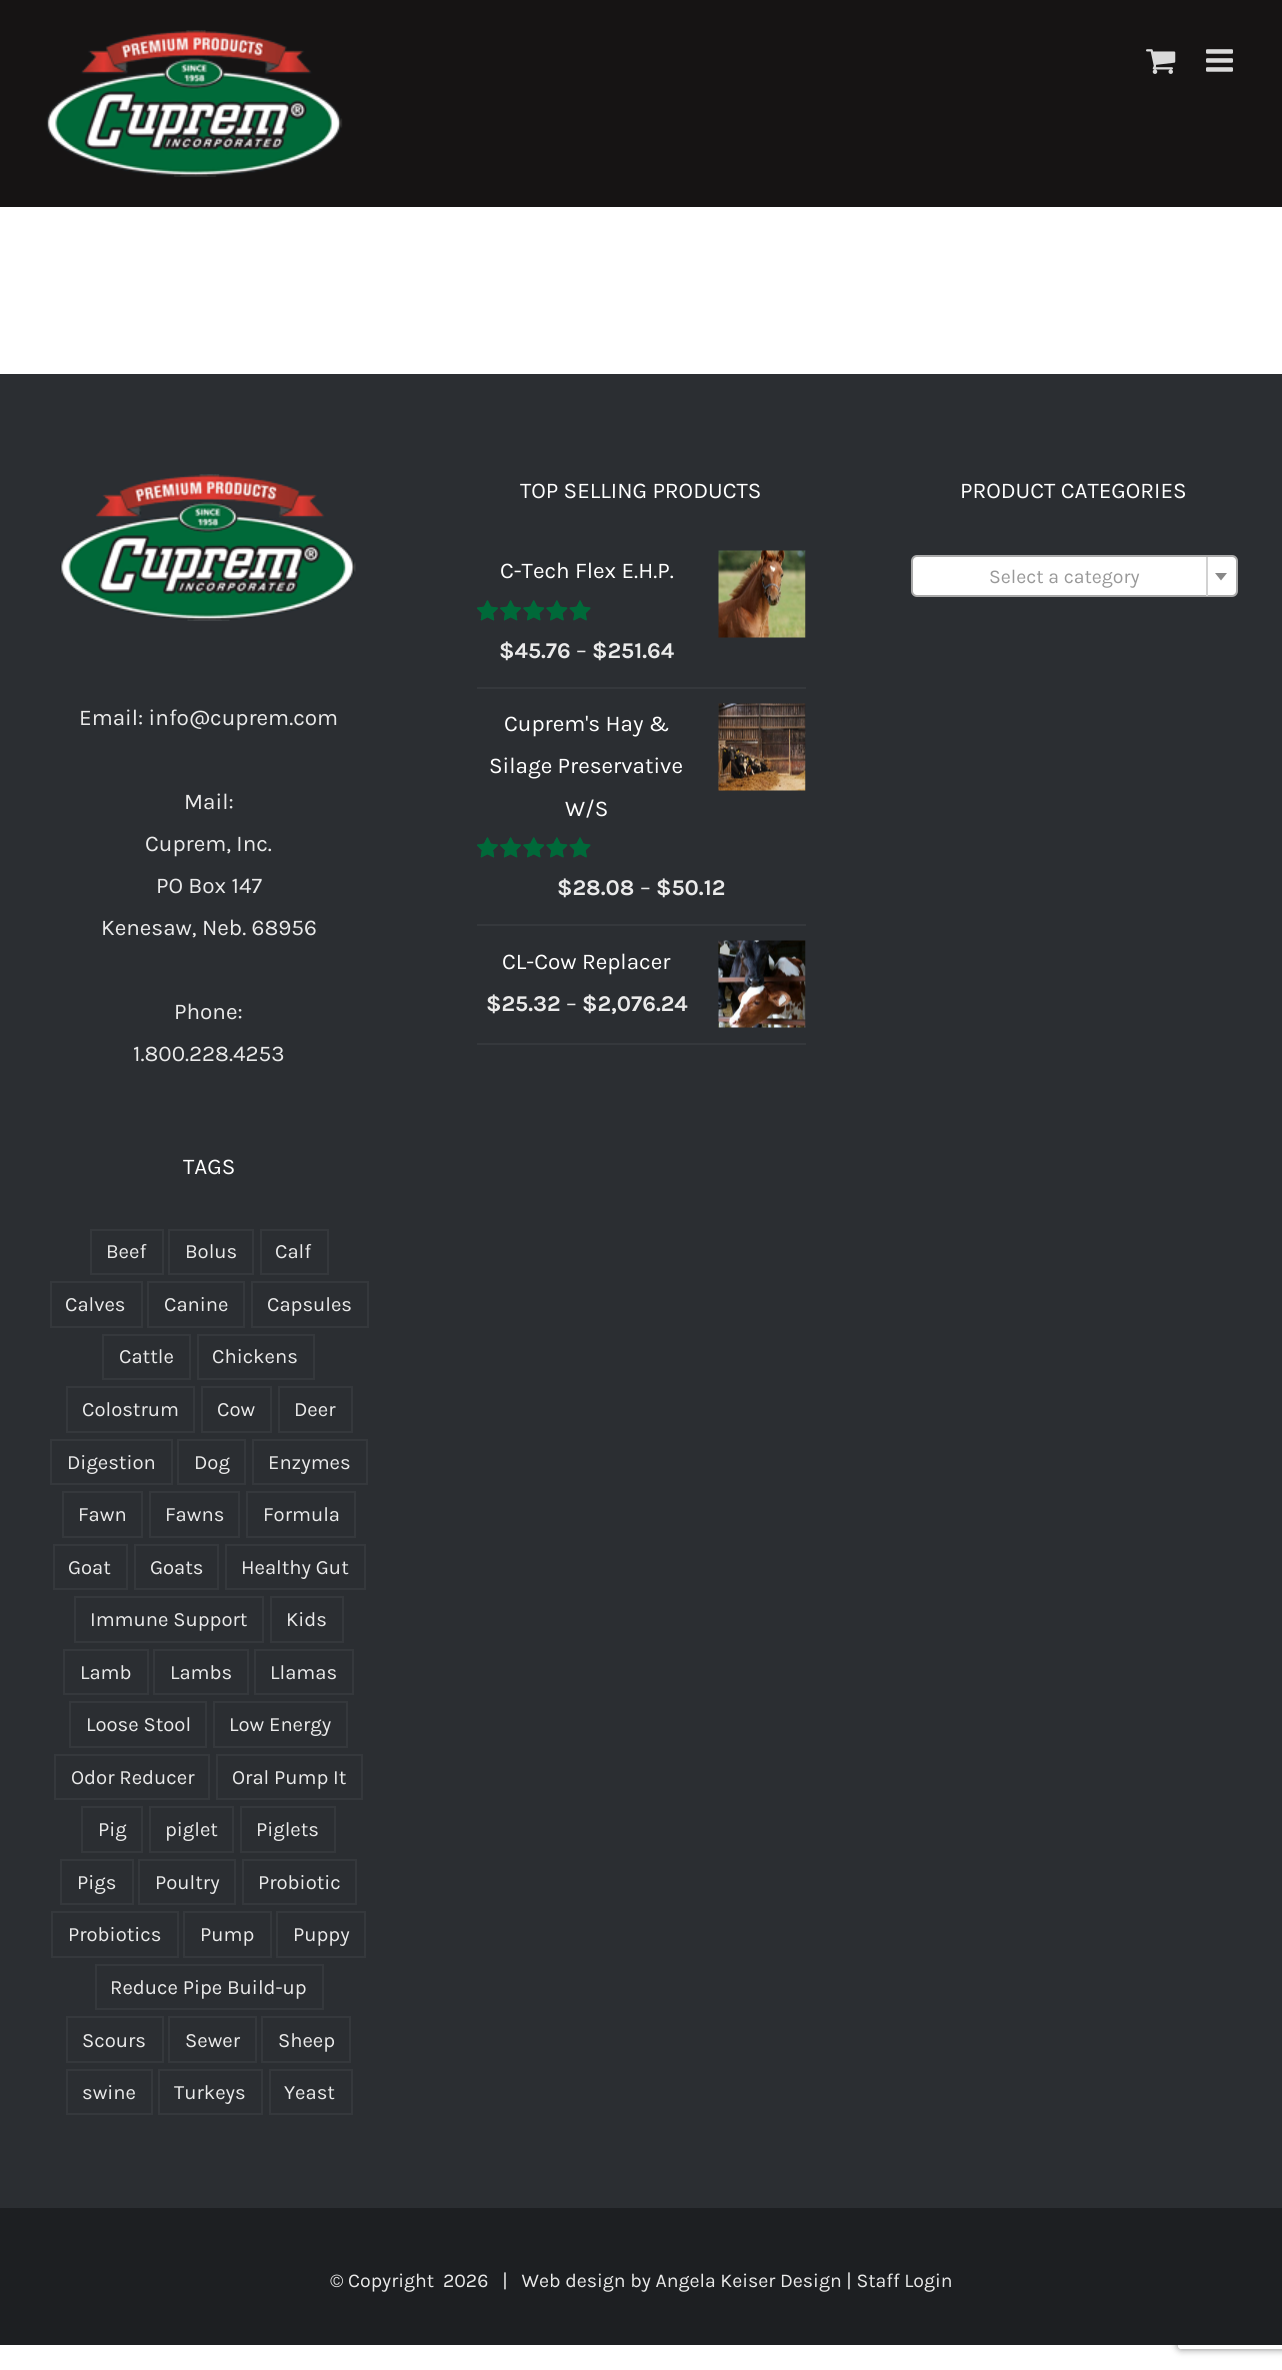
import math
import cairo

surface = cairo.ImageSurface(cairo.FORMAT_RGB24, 1282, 2370)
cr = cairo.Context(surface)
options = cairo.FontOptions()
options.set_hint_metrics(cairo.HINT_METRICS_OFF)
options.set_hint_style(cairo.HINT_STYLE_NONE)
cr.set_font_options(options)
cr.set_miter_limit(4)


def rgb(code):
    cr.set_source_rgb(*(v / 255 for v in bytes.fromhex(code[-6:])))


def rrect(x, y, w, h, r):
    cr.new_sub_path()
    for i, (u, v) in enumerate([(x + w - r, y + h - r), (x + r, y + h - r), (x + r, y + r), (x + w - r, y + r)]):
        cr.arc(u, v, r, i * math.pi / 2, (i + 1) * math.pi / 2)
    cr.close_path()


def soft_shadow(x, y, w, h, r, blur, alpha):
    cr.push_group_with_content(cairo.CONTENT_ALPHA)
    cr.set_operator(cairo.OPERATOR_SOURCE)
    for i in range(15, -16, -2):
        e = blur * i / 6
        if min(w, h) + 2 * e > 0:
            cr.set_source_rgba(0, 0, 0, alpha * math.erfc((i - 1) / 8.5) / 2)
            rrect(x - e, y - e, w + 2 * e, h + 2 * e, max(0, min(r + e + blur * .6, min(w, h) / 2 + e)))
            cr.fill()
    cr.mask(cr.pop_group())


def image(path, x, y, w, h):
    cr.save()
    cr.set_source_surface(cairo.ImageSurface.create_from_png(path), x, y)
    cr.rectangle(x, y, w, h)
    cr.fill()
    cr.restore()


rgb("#ffffff")
cr.paint()
rgb("#161414")
cr.rectangle(0, 0, 1282, 207)
cr.fill()
image("img/1.png", 46, 30, 297, 147)
image("img/2.png", 1146, 49, 30, 25)
image("img/3.png", 1206, 49, 27, 23)
rgb("#2b2e32")
cr.rectangle(0, 374, 1282, 1834)
cr.fill()
rgb("#35383c")
cr.rectangle(477, 687, 329, 2)
cr.fill()
image("img/4.png", 718, 550, 88, 88)
image("img/5.png", 477, 600, 114, 21)
image("img/6.png", 477, 600, 114, 21)
cr.rectangle(477, 924, 329, 2)
cr.fill()
image("img/7.png", 718, 703, 88, 88)
image("img/5.png", 477, 837, 114, 21)
image("img/6.png", 477, 837, 114, 21)
cr.rectangle(477, 1043, 329, 2)
cr.fill()
image("img/8.png", 718, 940, 88, 88)
rgb("#ffffff")
rrect(912, 556, 325, 40, 5)
cr.fill_preserve()
rgb("#aaaaaa")
cr.stroke()
rgb("#d2d2d2")
cr.rectangle(1206, 557, 2, 39)
cr.fill()
rgb("#888888")
cr.new_path()
cr.move_to(1215, 573)
cr.line_to(1227, 573)
cr.line_to(1221, 580.5)
cr.close_path()
cr.fill()
image("img/9.png", 60, 474, 296, 147)
cr.rectangle(91, 1230, 72, 44)
rgb("#35383c")
cr.stroke()
cr.rectangle(169, 1230, 84, 44)
cr.stroke()
cr.rectangle(261, 1230, 67, 44)
cr.stroke()
cr.rectangle(51, 1282, 91, 45)
cr.stroke()
cr.rectangle(148, 1282, 96, 45)
cr.stroke()
cr.rectangle(252, 1282, 116, 45)
cr.stroke()
cr.rectangle(103, 1335, 87, 44)
cr.stroke()
cr.rectangle(198, 1335, 116, 44)
cr.stroke()
cr.rectangle(67, 1387, 127, 45)
cr.stroke()
cr.rectangle(202, 1387, 69, 45)
cr.stroke()
cr.rectangle(279, 1387, 73, 45)
cr.stroke()
cr.rectangle(51, 1440, 121, 44)
cr.stroke()
cr.rectangle(178, 1440, 67, 44)
cr.stroke()
cr.rectangle(253, 1440, 114, 44)
cr.stroke()
cr.rectangle(63, 1492, 79, 45)
cr.stroke()
cr.rectangle(150, 1492, 89, 45)
cr.stroke()
cr.rectangle(247, 1492, 108, 45)
cr.stroke()
cr.rectangle(54, 1545, 73, 44)
cr.stroke()
cr.rectangle(135, 1545, 83, 44)
cr.stroke()
cr.rectangle(226, 1545, 139, 44)
cr.stroke()
cr.rectangle(75, 1597, 188, 45)
cr.stroke()
cr.rectangle(271, 1597, 72, 45)
cr.stroke()
cr.rectangle(64, 1650, 84, 44)
cr.stroke()
cr.rectangle(154, 1650, 94, 44)
cr.stroke()
cr.rectangle(255, 1650, 98, 44)
cr.stroke()
cr.rectangle(70, 1702, 136, 45)
cr.stroke()
cr.rectangle(214, 1702, 133, 45)
cr.stroke()
cr.rectangle(55, 1755, 154, 44)
cr.stroke()
cr.rectangle(217, 1755, 145, 44)
cr.stroke()
cr.rectangle(82, 1807, 60, 45)
cr.stroke()
cr.rectangle(150, 1807, 83, 45)
cr.stroke()
cr.rectangle(241, 1807, 94, 45)
cr.stroke()
cr.rectangle(61, 1860, 72, 44)
cr.stroke()
cr.rectangle(139, 1860, 96, 44)
cr.stroke()
cr.rectangle(243, 1860, 113, 44)
cr.stroke()
cr.rectangle(52, 1912, 126, 45)
cr.stroke()
cr.rectangle(184, 1912, 87, 45)
cr.stroke()
cr.rectangle(277, 1912, 88, 45)
cr.stroke()
cr.rectangle(96, 1965, 227, 44)
cr.stroke()
cr.rectangle(67, 2017, 96, 45)
cr.stroke()
cr.rectangle(169, 2017, 87, 45)
cr.stroke()
cr.rectangle(262, 2017, 88, 45)
cr.stroke()
cr.rectangle(67, 2070, 85, 44)
cr.stroke()
cr.rectangle(159, 2070, 103, 44)
cr.stroke()
cr.rectangle(270, 2070, 82, 44)
cr.stroke()
cr.save()
cr.set_fill_rule(cairo.FILL_RULE_EVEN_ODD)
cr.new_path()
cr.move_to(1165, 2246)
cr.line_to(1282, 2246)
cr.line_to(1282, 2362)
cr.line_to(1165, 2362)
cr.close_path()
cr.move_to(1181, 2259)
cr.line_to(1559, 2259)
cr.curve_to(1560.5, 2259, 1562, 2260.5, 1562, 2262)
cr.line_to(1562, 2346)
cr.curve_to(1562, 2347.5, 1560.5, 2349, 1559, 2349)
cr.line_to(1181, 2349)
cr.curve_to(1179.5, 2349, 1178, 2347.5, 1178, 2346)
cr.line_to(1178, 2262)
cr.curve_to(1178, 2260.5, 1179.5, 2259, 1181, 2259)
cr.close_path()
cr.clip()
rgb("#808080")
soft_shadow(1178, 2259, 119, 90, 3, 4, 1)
cr.restore()
rgb("#1d1f22")
cr.rectangle(0, 2208, 1282, 137)
cr.fill()
cr.select_font_face("Karla")
cr.set_font_size(22.5)
rgb("#ffffff")
cr.move_to(520, 498)
cr.show_text("TOP SELLING PRODUCTS")
cr.move_to(500, 578)
cr.show_text("C-Tech Flex E.H.P.")
cr.select_font_face("Karla", cairo.FONT_SLANT_NORMAL, cairo.FONT_WEIGHT_BOLD)
rgb("#eaeaea")
cr.move_to(499, 658)
cr.show_text("$45.76")
cr.select_font_face("Karla")
cr.move_to(576, 658)
cr.show_text("–")
cr.select_font_face("Karla", cairo.FONT_SLANT_NORMAL, cairo.FONT_WEIGHT_BOLD)
cr.move_to(592, 658)
cr.show_text("$251.64")
cr.select_font_face("Karla")
rgb("#ffffff")
for x, y, s in [
    (504, 731, "Cuprem's Hay &"),
    (489, 773, "Silage Preservative"),
    (565, 816, "W/S"),
]:
    cr.move_to(x, y)
    cr.show_text(s)
cr.select_font_face("Karla", cairo.FONT_SLANT_NORMAL, cairo.FONT_WEIGHT_BOLD)
rgb("#eaeaea")
cr.move_to(557, 895)
cr.show_text("$28.08")
cr.select_font_face("Karla")
cr.move_to(640, 895)
cr.show_text("–")
cr.select_font_face("Karla", cairo.FONT_SLANT_NORMAL, cairo.FONT_WEIGHT_BOLD)
cr.move_to(656, 895)
cr.show_text("$50.12")
cr.select_font_face("Karla")
rgb("#ffffff")
cr.move_to(502, 969)
cr.show_text("CL-Cow Replacer")
cr.select_font_face("Karla", cairo.FONT_SLANT_NORMAL, cairo.FONT_WEIGHT_BOLD)
rgb("#eaeaea")
cr.move_to(486, 1011)
cr.show_text("$25.32")
cr.select_font_face("Karla")
cr.move_to(566, 1011)
cr.show_text("–")
cr.select_font_face("Karla", cairo.FONT_SLANT_NORMAL, cairo.FONT_WEIGHT_BOLD)
cr.move_to(582, 1011)
cr.show_text("$2,076.24")
cr.select_font_face("Karla")
rgb("#ffffff")
cr.move_to(960, 498)
cr.show_text("PRODUCT CATEGORIES")
cr.set_font_size(19.5)
rgb("#999999")
cr.move_to(989, 583)
cr.show_text("Select a category")
cr.set_font_size(22.5)
rgb("#eaeaea")
for x, y, s in [
    (79, 725, "Email: info@cuprem.com"),
    (184, 809, "Mail:"),
    (145, 851, "Cuprem, Inc."),
    (156, 893, "PO Box 147"),
    (101, 935, "Kenesaw, Neb. 68956"),
    (174, 1019, "Phone:"),
    (133, 1061, "1.800.228.4253"),
]:
    cr.move_to(x, y)
    cr.show_text(s)
rgb("#ffffff")
cr.move_to(183, 1174)
cr.show_text("TAGS")
cr.set_font_size(20.25)
rgb("#eaeaea")
for x, y, s in [
    (106, 1258, "Beef"),
    (185, 1258, "Bolus"),
    (275, 1258, "Calf"),
    (65, 1311, "Calves"),
    (164, 1311, "Canine"),
    (267, 1311, "Capsules"),
    (119, 1363, "Cattle"),
    (212, 1363, "Chickens"),
    (82, 1416, "Colostrum"),
    (217, 1416, "Cow"),
    (294, 1416, "Deer"),
    (67, 1469, "Digestion"),
    (194, 1469, "Dog"),
    (268, 1469, "Enzymes"),
    (78, 1521, "Fawn"),
    (165, 1521, "Fawns"),
    (263, 1521, "Formula"),
    (68, 1574, "Goat"),
    (150, 1574, "Goats"),
    (241, 1574, "Healthy Gut"),
    (90, 1626, "Immune Support"),
    (286, 1626, "Kids"),
    (80, 1679, "Lamb"),
    (170, 1679, "Lambs"),
    (270, 1679, "Llamas"),
    (86, 1731, "Loose Stool"),
    (229, 1731, "Low Energy"),
    (71, 1784, "Odor Reducer"),
    (232, 1784, "Oral Pump It"),
    (98, 1836, "Pig"),
    (165, 1836, "piglet"),
    (256, 1836, "Piglets"),
    (77, 1889, "Pigs"),
    (155, 1889, "Poultry"),
    (258, 1889, "Probiotic"),
    (68, 1941, "Probiotics"),
    (200, 1941, "Pump"),
    (293, 1941, "Puppy"),
    (110, 1994, "Reduce Pipe Build-up"),
    (82, 2047, "Scours"),
    (185, 2047, "Sewer"),
    (278, 2047, "Sheep"),
    (82, 2099, "swine"),
    (174, 2099, "Turkeys"),
    (284, 2099, "Yeast"),
]:
    cr.move_to(x, y)
    cr.show_text(s)
cr.set_font_size(19.5)
cr.move_to(330, 2287)
cr.show_text("© Copyright")
cr.move_to(443, 2287)
cr.show_text("2026   |   Web design by Angela Keiser Design | Staff Login")
surface.write_to_png("page.png")
